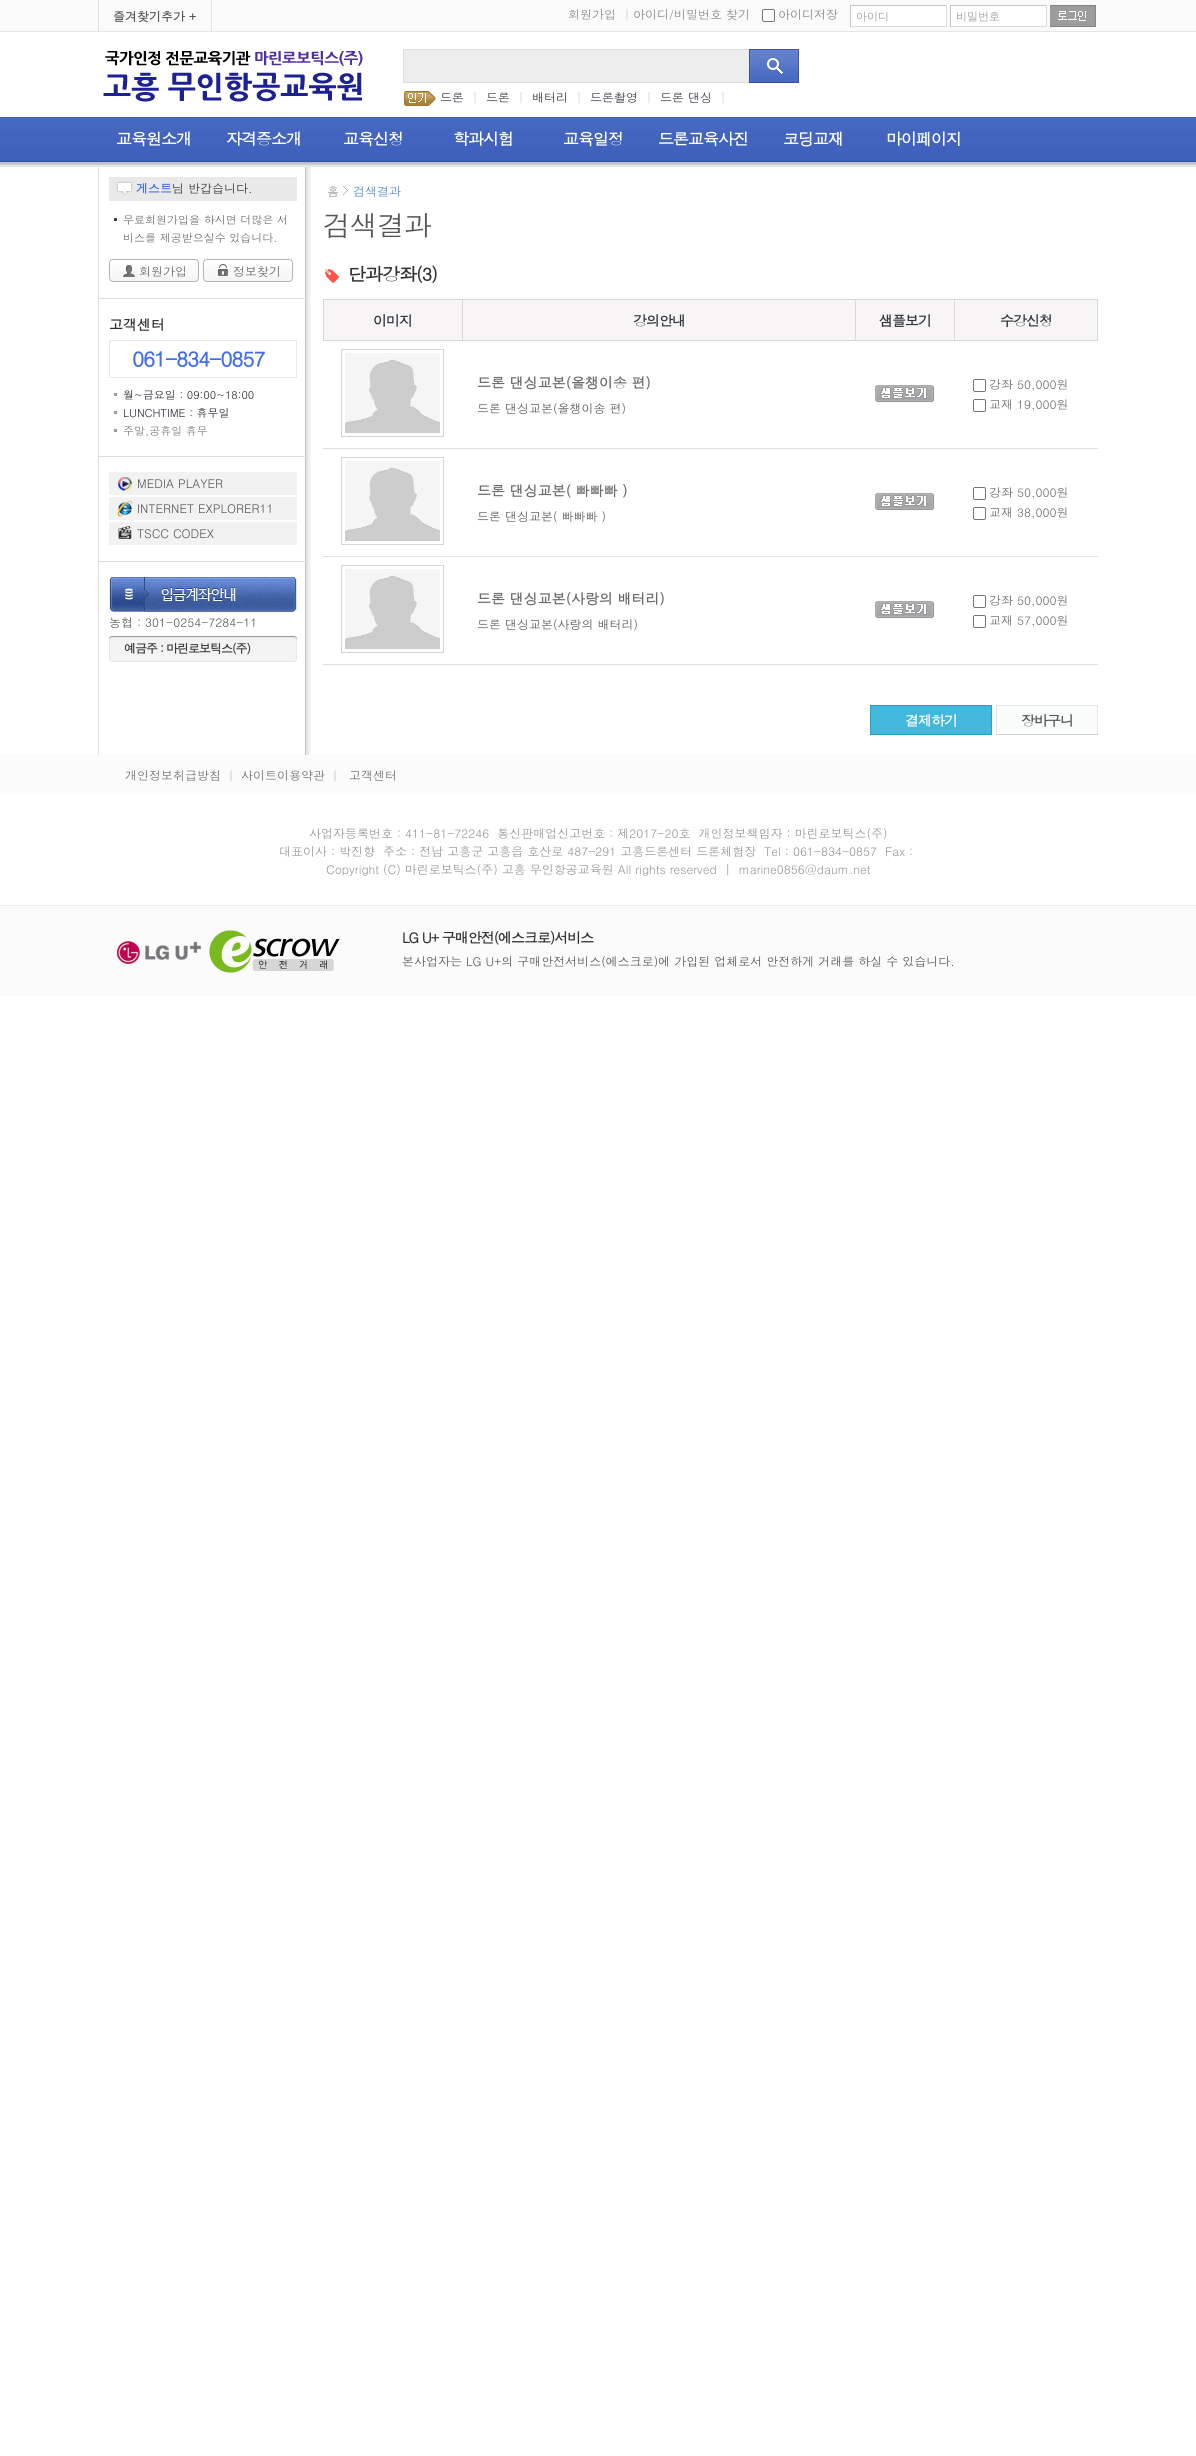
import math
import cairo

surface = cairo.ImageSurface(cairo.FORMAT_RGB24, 1196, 2456)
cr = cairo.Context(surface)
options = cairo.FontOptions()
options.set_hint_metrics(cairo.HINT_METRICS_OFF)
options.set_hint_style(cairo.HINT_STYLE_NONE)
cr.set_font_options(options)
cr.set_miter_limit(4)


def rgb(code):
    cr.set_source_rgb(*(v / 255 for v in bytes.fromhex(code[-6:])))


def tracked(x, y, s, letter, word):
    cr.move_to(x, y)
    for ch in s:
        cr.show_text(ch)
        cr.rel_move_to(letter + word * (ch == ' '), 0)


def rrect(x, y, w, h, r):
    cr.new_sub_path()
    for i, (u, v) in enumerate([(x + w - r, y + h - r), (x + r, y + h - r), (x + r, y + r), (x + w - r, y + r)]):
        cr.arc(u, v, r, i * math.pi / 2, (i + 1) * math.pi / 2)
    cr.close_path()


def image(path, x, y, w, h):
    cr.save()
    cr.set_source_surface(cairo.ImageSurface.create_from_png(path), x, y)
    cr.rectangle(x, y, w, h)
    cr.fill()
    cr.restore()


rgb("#ffffff")
cr.paint()
rgb("#fafafa")
cr.rectangle(0, 0, 1196, 31)
cr.fill()
rgb("#e5e5e5")
cr.rectangle(0, 31, 1196, 1)
cr.fill()
image("img/1.png", 98, 0, 2, 31)
image("img/1.png", 211, 0, 2, 31)
rgb("#ffffff")
rrect(762.5, 9.5, 12, 12, 1.5)
cr.fill_preserve()
rgb("#767676")
cr.set_line_width(1)
cr.stroke()
for x, y, w, h, color in [
    (851, 6, 95, 20, "#ffffff"),
    (850, 5, 97, 1, "#c4c4c4"),
    (946, 5, 1, 22, "#dddddd"),
    (850, 26, 97, 1, "#dddddd"),
    (850, 5, 1, 22, "#c4c4c4"),
    (951, 6, 95, 20, "#ffffff"),
    (950, 5, 97, 1, "#c4c4c4"),
    (1046, 5, 1, 22, "#dddddd"),
    (950, 26, 97, 1, "#dddddd"),
    (950, 5, 1, 22, "#c4c4c4"),
]:
    rgb(color)
    cr.rectangle(x, y, w, h)
    cr.fill()
image("img/2.png", 1050, 5, 46, 22)
image("img/3.png", 103, 51, 260, 51)
rgb("#ededed")
cr.rectangle(404, 50, 345, 32)
cr.fill()
cr.rectangle(403.5, 49.5, 371, 33)
rgb("#dedede")
cr.stroke()
image("img/4.png", 749, 49, 50, 34)
image("img/5.png", 404, 91, 32, 15)
image("img/6.png", 0, 117, 1196, 50)
image("img/7.png", 98, 167, 213, 588)
rgb("#e9e9e9")
cr.rectangle(109, 177, 188, 24)
cr.fill()
image("img/8.png", 116, 181, 17, 14)
rgb("#324351")
cr.rectangle(114, 218, 3, 3)
cr.fill()
image("img/9.png", 109, 259, 90, 23)
image("img/10.png", 203, 259, 90, 23)
rgb("#dddddd")
cr.rectangle(98, 298, 210, 1)
cr.fill()
cr.rectangle(109.5, 340.5, 187, 37)
rgb("#eaeaea")
cr.stroke()
for x, y, w, h, color in [
    (114, 393, 3, 3, "#999999"),
    (114, 411, 3, 3, "#999999"),
    (114, 429, 3, 3, "#999999"),
    (98, 456, 210, 1, "#dddddd"),
    (109, 472, 188, 23, "#f2f2f2"),
]:
    rgb(color)
    cr.rectangle(x, y, w, h)
    cr.fill()
image("img/11.png", 118, 477, 14, 14)
cr.rectangle(109, 497, 188, 23)
cr.fill()
image("img/12.png", 117, 500, 16, 17)
cr.rectangle(109, 522, 188, 23)
cr.fill()
image("img/13.png", 118, 526, 14, 13)
rgb("#dddddd")
cr.rectangle(98, 561, 210, 1)
cr.fill()
image("img/14.png", 109, 577, 188, 36)
image("img/15.png", 109, 636, 188, 26)
image("img/16.png", 343, 186, 5, 9)
image("img/17.png", 325, 269, 14, 14)
for x, y, w, h, color in [
    (324, 300, 138, 40, "#f7f5f5"),
    (323, 299, 775, 1, "#d5d5d5"),
    (1097, 299, 1, 42, "#d8d8d8"),
    (954, 340, 144, 1, "#d5d5d5"),
    (954, 299, 1, 42, "#d8d8d8"),
    (855, 340, 100, 1, "#d5d5d5"),
    (855, 299, 1, 42, "#d8d8d8"),
    (462, 340, 394, 1, "#d5d5d5"),
    (462, 299, 1, 42, "#d8d8d8"),
    (323, 340, 140, 1, "#d5d5d5"),
    (323, 299, 1, 42, "#d5d5d5"),
    (463, 300, 392, 40, "#f7f5f5"),
    (856, 300, 98, 40, "#f7f5f5"),
    (955, 300, 142, 40, "#f7f5f5"),
]:
    rgb(color)
    cr.rectangle(x, y, w, h)
    cr.fill()
cr.rectangle(341.5, 349.5, 102, 87)
rgb("#d5d5d5")
cr.stroke()
image("img/18.png", 345, 353, 95, 80)
image("img/19.png", 875, 385, 59, 17)
rgb("#e0e0e0")
cr.rectangle(323, 448, 775, 1)
cr.fill()
rrect(973.5, 379.5, 12, 12, 1.5)
rgb("#767676")
cr.stroke()
rrect(973.5, 399.5, 12, 12, 1.5)
cr.stroke()
cr.rectangle(341.5, 457.5, 102, 87)
rgb("#d5d5d5")
cr.stroke()
image("img/18.png", 345, 461, 95, 80)
image("img/19.png", 875, 493, 59, 17)
rgb("#e0e0e0")
cr.rectangle(323, 556, 775, 1)
cr.fill()
rrect(973.5, 487.5, 12, 12, 1.5)
rgb("#767676")
cr.stroke()
rrect(973.5, 507.5, 12, 12, 1.5)
cr.stroke()
cr.rectangle(341.5, 565.5, 102, 87)
rgb("#d5d5d5")
cr.stroke()
image("img/18.png", 345, 569, 95, 80)
image("img/19.png", 875, 601, 59, 17)
rgb("#e0e0e0")
cr.rectangle(323, 664, 775, 1)
cr.fill()
rrect(973.5, 595.5, 12, 12, 1.5)
rgb("#767676")
cr.stroke()
rrect(973.5, 615.5, 12, 12, 1.5)
cr.stroke()
rgb("#42b8dc")
cr.rectangle(870.5, 705.5, 121, 29)
cr.fill_preserve()
rgb("#269fc9")
cr.stroke()
for x, y, w, h, color in [
    (997, 706, 100, 28, "#fafbfb"),
    (996, 705, 102, 1, "#e5e6e9"),
    (1097, 705, 1, 30, "#e5e6e9"),
    (996, 734, 102, 1, "#cdcfd3"),
    (996, 705, 1, 30, "#e5e6e9"),
    (0, 755, 1196, 39, "#fbfbfb"),
    (0, 906, 1196, 90, "#fbfbfb"),
    (0, 905, 1196, 1, "#eeeeee"),
]:
    rgb(color)
    cr.rectangle(x, y, w, h)
    cr.fill()
image("img/20.png", 117, 926, 223, 47)
cr.select_font_face("Dotum", cairo.FONT_SLANT_NORMAL, cairo.FONT_WEIGHT_BOLD)
cr.set_font_size(12)
rgb("#555555")
cr.move_to(113, 21)
cr.show_text("즐겨찾기추가 +")
cr.select_font_face("Dotum")
rgb("#868686")
cr.move_to(568, 19)
cr.show_text("회원가입")
rgb("#cacaca")
cr.move_to(624, 19)
cr.show_text("|")
rgb("#868686")
cr.move_to(633, 19)
cr.show_text("아이디/비밀번호 찾기")
cr.move_to(778, 19)
cr.show_text("아이디저장")
cr.select_font_face("WenQuanYi Zen Hei Medium")
cr.set_font_size(11)
rgb("#a5a5a5")
cr.move_to(856, 20)
cr.show_text("아이디")
cr.move_to(956, 20)
cr.show_text("비밀번호")
cr.select_font_face("Dotum")
cr.set_font_size(12)
rgb("#33353e")
cr.move_to(440, 102)
cr.show_text("드론")
rgb("#cacaca")
cr.move_to(472, 102)
cr.show_text("|")
rgb("#33353e")
cr.move_to(486, 102)
cr.show_text("드론")
rgb("#cacaca")
cr.move_to(518, 102)
cr.show_text("|")
rgb("#33353e")
cr.move_to(532, 102)
cr.show_text("배터리")
rgb("#cacaca")
cr.move_to(576, 102)
cr.show_text("|")
rgb("#33353e")
cr.move_to(590, 102)
cr.show_text("드론촬영")
rgb("#cacaca")
cr.move_to(646, 102)
cr.show_text("|")
rgb("#33353e")
cr.move_to(660, 102)
cr.show_text("드론 댄싱")
rgb("#cacaca")
cr.move_to(720, 102)
cr.show_text("|")
cr.select_font_face("Dotum", cairo.FONT_SLANT_NORMAL, cairo.FONT_WEIGHT_BOLD)
cr.set_font_size(16)
rgb("#ffffff")
for x, y, s in [
    (116, 145, "교육원소개"),
    (226, 145, "자격증소개"),
    (343, 145, "교육신청"),
    (453, 145, "학과시험"),
    (563, 145, "교육일정"),
    (658, 145, "드론교육사진"),
    (783, 145, "코딩교재"),
    (886, 145, "마이페이지"),
]:
    tracked(x, y, s, -1, 0)
cr.set_font_size(12)
rgb("#416de9")
cr.move_to(136, 193)
cr.show_text("게스트")
cr.select_font_face("Dotum")
rgb("#333333")
cr.move_to(172, 193)
cr.show_text("님 반갑습니다.")
cr.set_font_size(11)
rgb("#6b6b6b")
cr.move_to(123, 224)
cr.show_text("무료회원가입을 하시면 더많은 서")
cr.move_to(123, 242)
cr.show_text("비스를 제공받으실수 있습니다.")
cr.set_font_size(12)
rgb("#646464")
cr.move_to(139, 276)
cr.show_text("회원가입")
cr.move_to(233, 276)
cr.show_text("정보찾기")
cr.select_font_face("Dotum", cairo.FONT_SLANT_NORMAL, cairo.FONT_WEIGHT_BOLD)
cr.set_font_size(14)
rgb("#333333")
cr.move_to(109, 330)
cr.show_text("고객센터")
cr.set_font_size(21)
rgb("#416de9")
tracked(132, 367, "061-834-0857", -1.25, 0)
cr.select_font_face("Dotum")
cr.set_font_size(11)
rgb("#23272d")
cr.move_to(123, 399)
cr.show_text("월~금요일 : 09:00~18:00")
cr.move_to(123, 417)
cr.show_text("LUNCHTIME : 휴무일")
rgb("#797979")
cr.move_to(123, 435)
cr.show_text("주말,공휴일 휴무")
cr.set_font_size(12)
rgb("#555555")
for x, y, s in [
    (137, 488, "MEDIA PLAYER"),
    (137, 513, "INTERNET EXPLORER11"),
    (137, 538, "TSCC CODEX"),
    (109, 627, "농협 : 301-0254-7284-11"),
]:
    cr.move_to(x, y)
    cr.show_text(s)
cr.select_font_face("Dotum", cairo.FONT_SLANT_NORMAL, cairo.FONT_WEIGHT_BOLD)
rgb("#3a3a3a")
tracked(124, 653, "예금주 : 마린로보틱스(주)", -1, 0)
cr.select_font_face("Dotum")
rgb("#959595")
cr.move_to(327, 196)
cr.show_text("홈")
rgb("#458acf")
cr.move_to(353, 196)
cr.show_text("검색결과")
cr.set_font_size(28)
rgb("#555555")
tracked(323, 236, "검색결과", -1, 0)
cr.select_font_face("Dotum", cairo.FONT_SLANT_NORMAL, cairo.FONT_WEIGHT_BOLD)
cr.set_font_size(18)
rgb("#333333")
tracked(348, 281, "단과강좌(3)", -1, 0)
cr.set_font_size(14)
rgb("#33353e")
for x, y, s in [
    (373, 326, "이미지"),
    (633, 326, "강의안내"),
    (879, 326, "샘플보기"),
    (1000, 326, "수강신청"),
]:
    tracked(x, y, s, -1, 0)
rgb("#6b6b6b")
cr.move_to(477, 388)
cr.show_text("드론 댄싱교본(올챙이송 편)")
cr.select_font_face("Dotum")
cr.set_font_size(12)
rgb("#555555")
cr.move_to(477, 413)
cr.show_text("드론 댄싱교본(올챙이송 편)")
rgb("#6b6b6b")
cr.move_to(989, 389)
cr.show_text("강좌 50,000원")
cr.move_to(989, 409)
cr.show_text("교재 19,000원")
cr.select_font_face("Dotum", cairo.FONT_SLANT_NORMAL, cairo.FONT_WEIGHT_BOLD)
cr.set_font_size(14)
cr.move_to(477, 496)
cr.show_text("드론 댄싱교본( 빠빠빠 )")
cr.select_font_face("Dotum")
cr.set_font_size(12)
rgb("#555555")
cr.move_to(477, 521)
cr.show_text("드론 댄싱교본( 빠빠빠 )")
rgb("#6b6b6b")
cr.move_to(989, 497)
cr.show_text("강좌 50,000원")
cr.move_to(989, 517)
cr.show_text("교재 38,000원")
cr.select_font_face("Dotum", cairo.FONT_SLANT_NORMAL, cairo.FONT_WEIGHT_BOLD)
cr.set_font_size(14)
cr.move_to(477, 604)
cr.show_text("드론 댄싱교본(사랑의 배터리)")
cr.select_font_face("Dotum")
cr.set_font_size(12)
rgb("#555555")
cr.move_to(477, 629)
cr.show_text("드론 댄싱교본(사랑의 배터리)")
rgb("#6b6b6b")
cr.move_to(989, 605)
cr.show_text("강좌 50,000원")
cr.move_to(989, 625)
cr.show_text("교재 57,000원")
cr.select_font_face("Dotum", cairo.FONT_SLANT_NORMAL, cairo.FONT_WEIGHT_BOLD)
cr.set_font_size(14)
rgb("#ffffff")
tracked(905, 726, "결제하기", -1, 0)
rgb("#555555")
tracked(1021, 726, "장바구니", -1, 0)
cr.select_font_face("Dotum")
cr.set_font_size(12)
rgb("#6b6b6b")
cr.move_to(125, 780)
cr.show_text("개인정보취급방침")
rgb("#bbbbbb")
cr.move_to(228, 780)
cr.show_text("|")
rgb("#6b6b6b")
cr.move_to(241, 780)
cr.show_text("사이트이용약관")
rgb("#bbbbbb")
cr.move_to(332, 780)
cr.show_text("|")
rgb("#6b6b6b")
cr.move_to(349, 780)
cr.show_text("고객센터")
rgb("#959595")
for x, y, s in [
    (309, 838, "사업자등록번호 : 411-81-72246  통신판매업신고번호 : 제2017-20호  개인정보책임자 : 마린로보틱스(주)"),
    (279, 856, "대표이사 : 박진향  주소 : 전남 고흥군 고흥읍 호산로 487-291 고흥드론센터 드론체험장  Tel : 061-834-0857  Fax :"),
    (326, 874, "Copyright (C) 마린로보틱스(주) 고흥 무인항공교육원 All rights reserved  |  marine0856@daum.net"),
]:
    cr.move_to(x, y)
    cr.show_text(s)
cr.select_font_face("Dotum", cairo.FONT_SLANT_NORMAL, cairo.FONT_WEIGHT_BOLD)
cr.set_font_size(14)
rgb("#333333")
tracked(402, 943, "LG U+ 구매안전(에스크로)서비스", -1, 0)
cr.select_font_face("Dotum")
cr.set_font_size(12)
rgb("#555555")
cr.move_to(402, 966)
cr.show_text("본사업자는 LG U+의 구매안전서비스(에스크로)에 가입된 업체로서 안전하게 거래를 하실 수 있습니다.")
surface.write_to_png("page.png")
